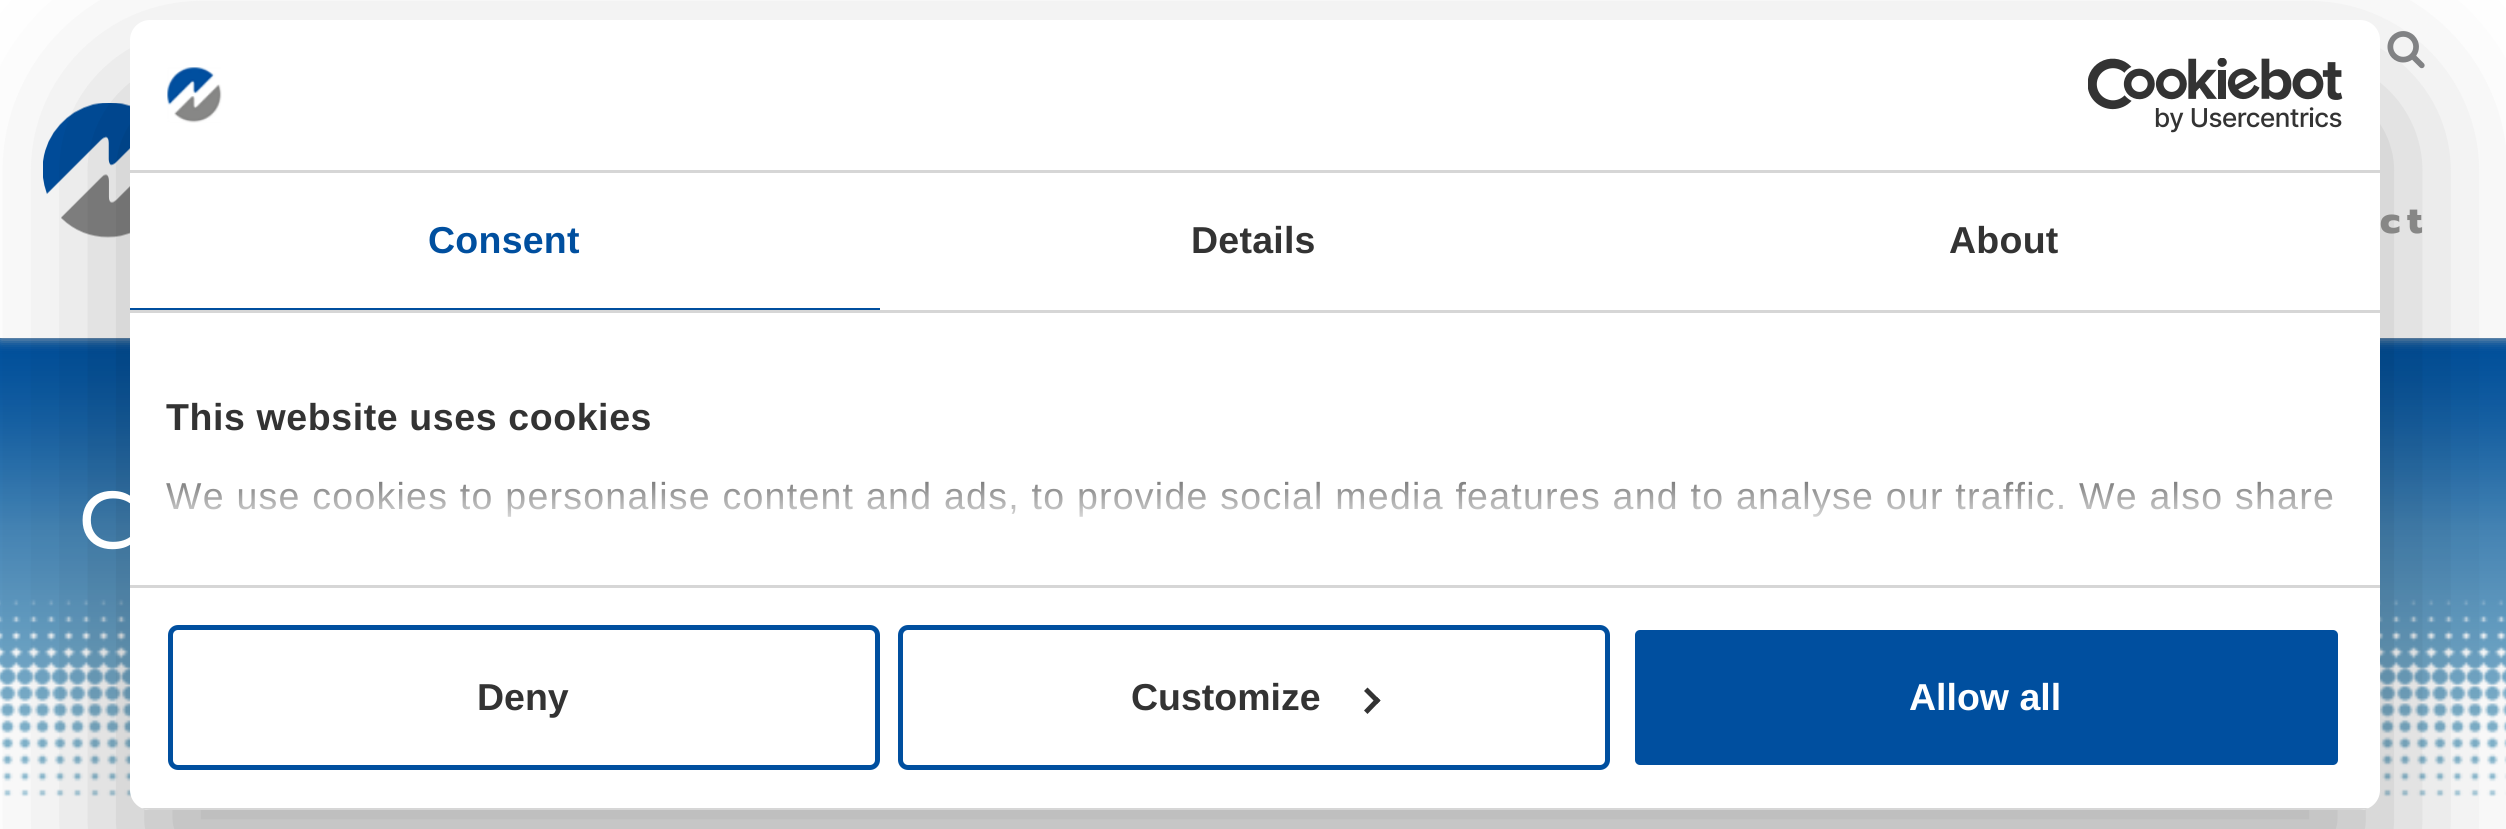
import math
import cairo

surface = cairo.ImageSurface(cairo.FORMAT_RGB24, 2506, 829)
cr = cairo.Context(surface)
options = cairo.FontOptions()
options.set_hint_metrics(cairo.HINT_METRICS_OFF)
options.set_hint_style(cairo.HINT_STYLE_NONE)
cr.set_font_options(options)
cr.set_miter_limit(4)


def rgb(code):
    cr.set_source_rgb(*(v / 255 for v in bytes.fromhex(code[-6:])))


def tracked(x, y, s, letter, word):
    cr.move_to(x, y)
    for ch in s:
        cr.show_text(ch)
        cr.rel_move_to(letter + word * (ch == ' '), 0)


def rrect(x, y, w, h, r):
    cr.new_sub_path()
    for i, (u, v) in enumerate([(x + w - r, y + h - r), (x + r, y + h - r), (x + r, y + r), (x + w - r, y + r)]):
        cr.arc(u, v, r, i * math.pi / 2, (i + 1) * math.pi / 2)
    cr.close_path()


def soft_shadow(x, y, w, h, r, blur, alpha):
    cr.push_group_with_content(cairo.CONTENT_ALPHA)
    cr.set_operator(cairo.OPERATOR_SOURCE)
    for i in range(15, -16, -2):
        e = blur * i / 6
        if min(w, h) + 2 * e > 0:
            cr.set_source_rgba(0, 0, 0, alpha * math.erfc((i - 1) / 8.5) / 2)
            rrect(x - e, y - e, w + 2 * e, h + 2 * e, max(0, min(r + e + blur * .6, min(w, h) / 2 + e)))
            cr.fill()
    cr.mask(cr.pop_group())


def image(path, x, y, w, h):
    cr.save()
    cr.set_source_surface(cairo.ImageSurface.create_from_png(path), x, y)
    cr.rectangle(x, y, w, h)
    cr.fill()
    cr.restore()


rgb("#ffffff")
cr.paint()
image("img/3.png", 0, 338, 2506, 459)
rgb("#bbbbbb")
soft_shadow(0, 0, 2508, 338, 0, 6, 1)
rgb("#ffffff")
cr.rectangle(0, 0, 2506, 338)
cr.fill()
image("img/1.png", 2387, 31, 38, 38)
image("img/2.png", 43, 103, 87, 135)
rgb("#000000")
soft_shadow(130, 100, 2250, 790, 20, 85, 0.3)
rgb("#ffffff")
rrect(130, 20, 2250, 790, 20)
cr.fill()
rgb("#d6d6d6")
cr.rectangle(130, 170, 2250, 3)
cr.fill()
image("img/4.png", 167, 67, 55, 56)
image("img/5.png", 2088, 58, 255, 75)
for x, y, w, h, color in [
    (130, 310, 2250, 3, "#d6d6d6"),
    (130, 308, 750, 2, "#004f9f"),
    (130, 585, 2250, 3, "#d6d6d6"),
]:
    rgb(color)
    cr.rectangle(x, y, w, h)
    cr.fill()
cr.save()
rrect(130, 20, 2250, 790, 20)
cr.clip()
cr.rectangle(141, 808, 2228, 2)
cr.fill()
cr.restore()
rrect(170.5, 627.5, 707, 140, 7.5)
rgb("#004f9f")
cr.set_line_width(5)
cr.stroke()
rrect(900.5, 627.5, 707, 140, 7.5)
cr.stroke()
rgb("#333333")
cr.new_path()
cr.move_to(1367.5, 687.5)
cr.line_to(1380.5, 700.5)
cr.line_to(1377, 704)
cr.line_to(1364, 691)
cr.close_path()
cr.fill()
cr.new_path()
cr.move_to(1377, 697)
cr.line_to(1380.5, 700.5)
cr.line_to(1367.5, 714)
cr.line_to(1364, 710.5)
cr.close_path()
cr.fill()
rgb("#004f9f")
rrect(1632.5, 627.5, 708, 140, 7.5)
cr.fill_preserve()
rgb("#ffffff")
cr.stroke()
cr.select_font_face("Prompt ExtraBold")
cr.set_font_size(37.5)
rgb("#878786")
tracked(2380, 233, "ct", 7, 0)
cr.select_font_face("Prompt")
cr.set_font_size(80)
rgb("#ffffff")
tracked(79, 548, "C", 5, 0)
cr.select_font_face("Liberation Sans", cairo.FONT_SLANT_NORMAL, cairo.FONT_WEIGHT_BOLD)
cr.set_font_size(37.5)
rgb("#004f9f")
tracked(428, 253, "Consent", 0.25, 0)
rgb("#333333")
tracked(1191, 253, "Details", 0.25, 0)
tracked(1949, 253, "About", 0.25, 0)
tracked(166, 430, "This website uses cookies", 0.6, 0)
cr.select_font_face("Liberation Sans")
tracked(166, 509, "We use cookies to personalise content and ads, to provide social media features and to analyse our traffic. We also share", 1.25, 0)
gradient = cairo.LinearGradient(1239, 585, 1239, 450)
gradient.add_color_stop_rgba(0, 1, 1, 1, 1)
gradient.add_color_stop_rgba(0.5, 1, 1, 1, 0.8)
gradient.add_color_stop_rgba(1, 1, 1, 1, 0)
cr.set_source(gradient)
cr.rectangle(166, 481, 2167, 36)
cr.fill()
cr.select_font_face("Liberation Sans", cairo.FONT_SLANT_NORMAL, cairo.FONT_WEIGHT_BOLD)
rgb("#333333")
cr.move_to(477, 710)
cr.show_text("Deny")
cr.move_to(1131, 710)
cr.show_text("Customize")
rgb("#ffffff")
cr.move_to(1909, 710)
cr.show_text("Allow all")
surface.write_to_png("page.png")
